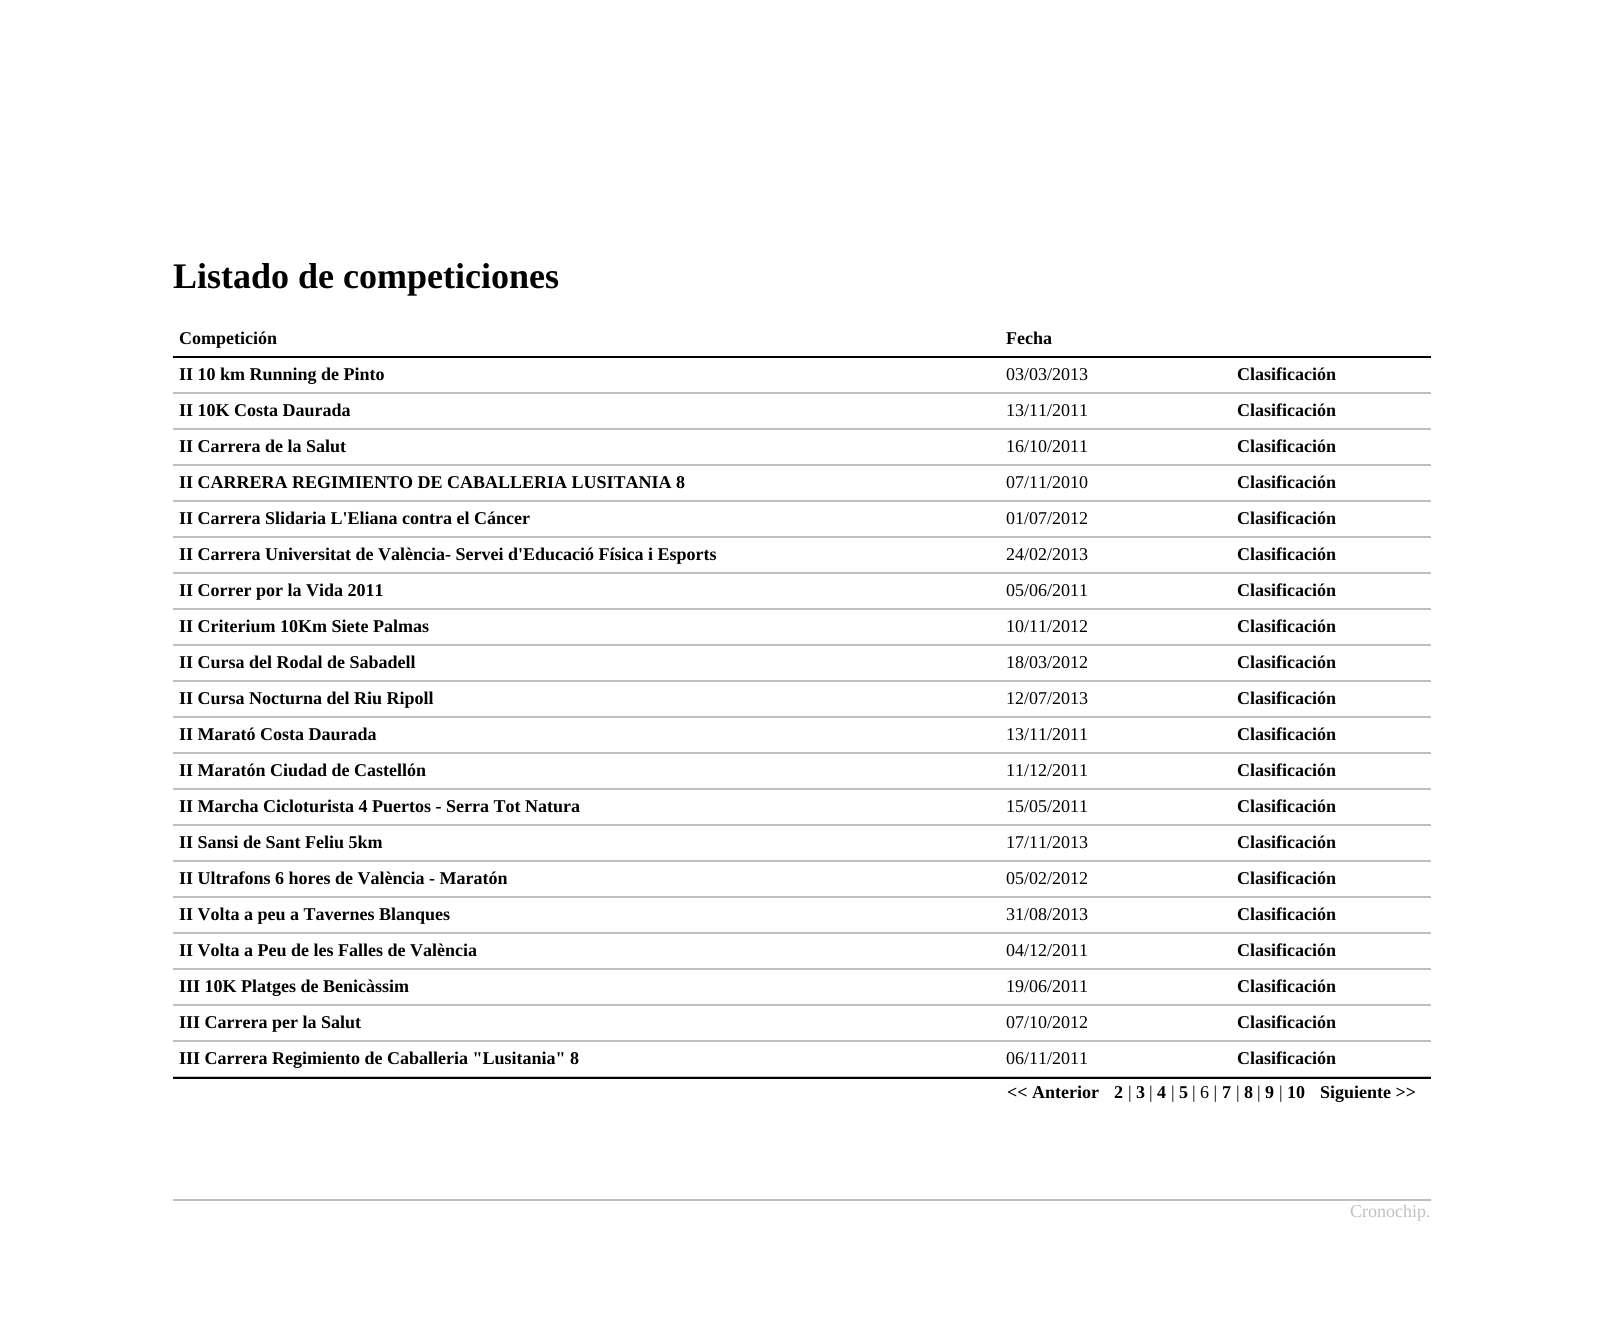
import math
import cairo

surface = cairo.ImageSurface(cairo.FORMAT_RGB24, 1603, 1335)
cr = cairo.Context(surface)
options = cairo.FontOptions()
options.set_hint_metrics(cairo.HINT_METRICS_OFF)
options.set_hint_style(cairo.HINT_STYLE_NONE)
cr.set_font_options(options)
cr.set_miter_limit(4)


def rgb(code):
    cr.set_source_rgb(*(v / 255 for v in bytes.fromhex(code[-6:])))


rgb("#ffffff")
cr.paint()
for x, y, w, h, color in [
    (173, 356, 1258, 2, "#000000"),
    (173, 392, 1258, 2, "#c0c0c0"),
    (173, 428, 1258, 2, "#c0c0c0"),
    (173, 464, 1258, 2, "#c0c0c0"),
    (173, 500, 1258, 2, "#c0c0c0"),
    (173, 536, 1258, 2, "#c0c0c0"),
    (173, 572, 1258, 2, "#c0c0c0"),
    (173, 608, 1258, 2, "#c0c0c0"),
    (173, 644, 1258, 2, "#c0c0c0"),
    (173, 680, 1258, 2, "#c0c0c0"),
    (173, 716, 1258, 2, "#c0c0c0"),
    (173, 752, 1258, 2, "#c0c0c0"),
    (173, 788, 1258, 2, "#c0c0c0"),
    (173, 824, 1258, 2, "#c0c0c0"),
    (173, 860, 1258, 2, "#c0c0c0"),
    (173, 896, 1258, 2, "#c0c0c0"),
    (173, 932, 1258, 2, "#c0c0c0"),
    (173, 968, 1258, 2, "#c0c0c0"),
    (173, 1004, 1258, 2, "#c0c0c0"),
    (173, 1040, 1258, 2, "#c0c0c0"),
    (173, 1076, 1258, 1, "#c0c0c0"),
    (173, 1077, 1258, 2, "#000000"),
    (173, 1199, 1258, 2, "#c0c0c0"),
]:
    rgb(color)
    cr.rectangle(x, y, w, h)
    cr.fill()
cr.select_font_face("Liberation Serif", cairo.FONT_SLANT_NORMAL, cairo.FONT_WEIGHT_BOLD)
cr.set_font_size(36)
rgb("#000000")
cr.move_to(173, 288)
cr.show_text("Listado de competiciones")
cr.set_font_size(18)
for x, y, s in [
    (179, 344, "Competición"),
    (1006, 344, "Fecha"),
    (179, 380, "II 10 km Running de Pinto"),
]:
    cr.move_to(x, y)
    cr.show_text(s)
cr.select_font_face("Liberation Serif")
cr.move_to(1006, 380)
cr.show_text("03/03/2013")
cr.select_font_face("Liberation Serif", cairo.FONT_SLANT_NORMAL, cairo.FONT_WEIGHT_BOLD)
cr.move_to(1237, 380)
cr.show_text("Clasificación")
cr.move_to(179, 416)
cr.show_text("II 10K Costa Daurada")
cr.select_font_face("Liberation Serif")
cr.move_to(1006, 416)
cr.show_text("13/11/2011")
cr.select_font_face("Liberation Serif", cairo.FONT_SLANT_NORMAL, cairo.FONT_WEIGHT_BOLD)
cr.move_to(1237, 416)
cr.show_text("Clasificación")
cr.move_to(179, 452)
cr.show_text("II Carrera de la Salut")
cr.select_font_face("Liberation Serif")
cr.move_to(1006, 452)
cr.show_text("16/10/2011")
cr.select_font_face("Liberation Serif", cairo.FONT_SLANT_NORMAL, cairo.FONT_WEIGHT_BOLD)
cr.move_to(1237, 452)
cr.show_text("Clasificación")
cr.move_to(179, 488)
cr.show_text("II CARRERA REGIMIENTO DE CABALLERIA LUSITANIA 8")
cr.select_font_face("Liberation Serif")
cr.move_to(1006, 488)
cr.show_text("07/11/2010")
cr.select_font_face("Liberation Serif", cairo.FONT_SLANT_NORMAL, cairo.FONT_WEIGHT_BOLD)
cr.move_to(1237, 488)
cr.show_text("Clasificación")
cr.move_to(179, 524)
cr.show_text("II Carrera Slidaria L'Eliana contra el Cáncer")
cr.select_font_face("Liberation Serif")
cr.move_to(1006, 524)
cr.show_text("01/07/2012")
cr.select_font_face("Liberation Serif", cairo.FONT_SLANT_NORMAL, cairo.FONT_WEIGHT_BOLD)
cr.move_to(1237, 524)
cr.show_text("Clasificación")
cr.move_to(179, 560)
cr.show_text("II Carrera Universitat de València- Servei d'Educació Física i Esports")
cr.select_font_face("Liberation Serif")
cr.move_to(1006, 560)
cr.show_text("24/02/2013")
cr.select_font_face("Liberation Serif", cairo.FONT_SLANT_NORMAL, cairo.FONT_WEIGHT_BOLD)
cr.move_to(1237, 560)
cr.show_text("Clasificación")
cr.move_to(179, 596)
cr.show_text("II Correr por la Vida 2011")
cr.select_font_face("Liberation Serif")
cr.move_to(1006, 596)
cr.show_text("05/06/2011")
cr.select_font_face("Liberation Serif", cairo.FONT_SLANT_NORMAL, cairo.FONT_WEIGHT_BOLD)
cr.move_to(1237, 596)
cr.show_text("Clasificación")
cr.move_to(179, 632)
cr.show_text("II Criterium 10Km Siete Palmas")
cr.select_font_face("Liberation Serif")
cr.move_to(1006, 632)
cr.show_text("10/11/2012")
cr.select_font_face("Liberation Serif", cairo.FONT_SLANT_NORMAL, cairo.FONT_WEIGHT_BOLD)
cr.move_to(1237, 632)
cr.show_text("Clasificación")
cr.move_to(179, 668)
cr.show_text("II Cursa del Rodal de Sabadell")
cr.select_font_face("Liberation Serif")
cr.move_to(1006, 668)
cr.show_text("18/03/2012")
cr.select_font_face("Liberation Serif", cairo.FONT_SLANT_NORMAL, cairo.FONT_WEIGHT_BOLD)
cr.move_to(1237, 668)
cr.show_text("Clasificación")
cr.move_to(179, 704)
cr.show_text("II Cursa Nocturna del Riu Ripoll")
cr.select_font_face("Liberation Serif")
cr.move_to(1006, 704)
cr.show_text("12/07/2013")
cr.select_font_face("Liberation Serif", cairo.FONT_SLANT_NORMAL, cairo.FONT_WEIGHT_BOLD)
cr.move_to(1237, 704)
cr.show_text("Clasificación")
cr.move_to(179, 740)
cr.show_text("II Marató Costa Daurada")
cr.select_font_face("Liberation Serif")
cr.move_to(1006, 740)
cr.show_text("13/11/2011")
cr.select_font_face("Liberation Serif", cairo.FONT_SLANT_NORMAL, cairo.FONT_WEIGHT_BOLD)
cr.move_to(1237, 740)
cr.show_text("Clasificación")
cr.move_to(179, 776)
cr.show_text("II Maratón Ciudad de Castellón")
cr.select_font_face("Liberation Serif")
cr.move_to(1006, 776)
cr.show_text("11/12/2011")
cr.select_font_face("Liberation Serif", cairo.FONT_SLANT_NORMAL, cairo.FONT_WEIGHT_BOLD)
cr.move_to(1237, 776)
cr.show_text("Clasificación")
cr.move_to(179, 812)
cr.show_text("II Marcha Cicloturista 4 Puertos - Serra Tot Natura")
cr.select_font_face("Liberation Serif")
cr.move_to(1006, 812)
cr.show_text("15/05/2011")
cr.select_font_face("Liberation Serif", cairo.FONT_SLANT_NORMAL, cairo.FONT_WEIGHT_BOLD)
cr.move_to(1237, 812)
cr.show_text("Clasificación")
cr.move_to(179, 848)
cr.show_text("II Sansi de Sant Feliu 5km")
cr.select_font_face("Liberation Serif")
cr.move_to(1006, 848)
cr.show_text("17/11/2013")
cr.select_font_face("Liberation Serif", cairo.FONT_SLANT_NORMAL, cairo.FONT_WEIGHT_BOLD)
cr.move_to(1237, 848)
cr.show_text("Clasificación")
cr.move_to(179, 884)
cr.show_text("II Ultrafons 6 hores de València - Maratón")
cr.select_font_face("Liberation Serif")
cr.move_to(1006, 884)
cr.show_text("05/02/2012")
cr.select_font_face("Liberation Serif", cairo.FONT_SLANT_NORMAL, cairo.FONT_WEIGHT_BOLD)
cr.move_to(1237, 884)
cr.show_text("Clasificación")
cr.move_to(179, 920)
cr.show_text("II Volta a peu a Tavernes Blanques")
cr.select_font_face("Liberation Serif")
cr.move_to(1006, 920)
cr.show_text("31/08/2013")
cr.select_font_face("Liberation Serif", cairo.FONT_SLANT_NORMAL, cairo.FONT_WEIGHT_BOLD)
cr.move_to(1237, 920)
cr.show_text("Clasificación")
cr.move_to(179, 956)
cr.show_text("II Volta a Peu de les Falles de València")
cr.select_font_face("Liberation Serif")
cr.move_to(1006, 956)
cr.show_text("04/12/2011")
cr.select_font_face("Liberation Serif", cairo.FONT_SLANT_NORMAL, cairo.FONT_WEIGHT_BOLD)
cr.move_to(1237, 956)
cr.show_text("Clasificación")
cr.move_to(179, 992)
cr.show_text("III 10K Platges de Benicàssim")
cr.select_font_face("Liberation Serif")
cr.move_to(1006, 992)
cr.show_text("19/06/2011")
cr.select_font_face("Liberation Serif", cairo.FONT_SLANT_NORMAL, cairo.FONT_WEIGHT_BOLD)
cr.move_to(1237, 992)
cr.show_text("Clasificación")
cr.move_to(179, 1028)
cr.show_text("III Carrera per la Salut")
cr.select_font_face("Liberation Serif")
cr.move_to(1006, 1028)
cr.show_text("07/10/2012")
cr.select_font_face("Liberation Serif", cairo.FONT_SLANT_NORMAL, cairo.FONT_WEIGHT_BOLD)
cr.move_to(1237, 1028)
cr.show_text("Clasificación")
cr.move_to(179, 1064)
cr.show_text("III Carrera Regimiento de Caballeria \"Lusitania\" 8")
cr.select_font_face("Liberation Serif")
cr.move_to(1006, 1064)
cr.show_text("06/11/2011")
cr.select_font_face("Liberation Serif", cairo.FONT_SLANT_NORMAL, cairo.FONT_WEIGHT_BOLD)
for x, y, s in [
    (1237, 1064, "Clasificación"),
    (1007, 1098, "<< Anterior"),
    (1114, 1098, "2"),
]:
    cr.move_to(x, y)
    cr.show_text(s)
cr.select_font_face("Liberation Serif")
cr.move_to(1128, 1098)
cr.show_text("|")
cr.select_font_face("Liberation Serif", cairo.FONT_SLANT_NORMAL, cairo.FONT_WEIGHT_BOLD)
cr.move_to(1136, 1098)
cr.show_text("3")
cr.select_font_face("Liberation Serif")
cr.move_to(1149, 1098)
cr.show_text("|")
cr.select_font_face("Liberation Serif", cairo.FONT_SLANT_NORMAL, cairo.FONT_WEIGHT_BOLD)
cr.move_to(1157, 1098)
cr.show_text("4")
cr.select_font_face("Liberation Serif")
cr.move_to(1171, 1098)
cr.show_text("|")
cr.select_font_face("Liberation Serif", cairo.FONT_SLANT_NORMAL, cairo.FONT_WEIGHT_BOLD)
cr.move_to(1179, 1098)
cr.show_text("5")
cr.select_font_face("Liberation Serif")
cr.move_to(1192, 1098)
cr.show_text("| 6 |")
cr.select_font_face("Liberation Serif", cairo.FONT_SLANT_NORMAL, cairo.FONT_WEIGHT_BOLD)
cr.move_to(1222, 1098)
cr.show_text("7")
cr.select_font_face("Liberation Serif")
cr.move_to(1236, 1098)
cr.show_text("|")
cr.select_font_face("Liberation Serif", cairo.FONT_SLANT_NORMAL, cairo.FONT_WEIGHT_BOLD)
cr.move_to(1244, 1098)
cr.show_text("8")
cr.select_font_face("Liberation Serif")
cr.move_to(1257, 1098)
cr.show_text("|")
cr.select_font_face("Liberation Serif", cairo.FONT_SLANT_NORMAL, cairo.FONT_WEIGHT_BOLD)
cr.move_to(1265, 1098)
cr.show_text("9")
cr.select_font_face("Liberation Serif")
cr.move_to(1279, 1098)
cr.show_text("|")
cr.select_font_face("Liberation Serif", cairo.FONT_SLANT_NORMAL, cairo.FONT_WEIGHT_BOLD)
cr.move_to(1287, 1098)
cr.show_text("10")
cr.move_to(1320, 1098)
cr.show_text("Siguiente >>")
cr.select_font_face("Liberation Serif")
rgb("#c0c0c0")
cr.move_to(1350, 1217)
cr.show_text("Cronochip.")
surface.write_to_png("page.png")
